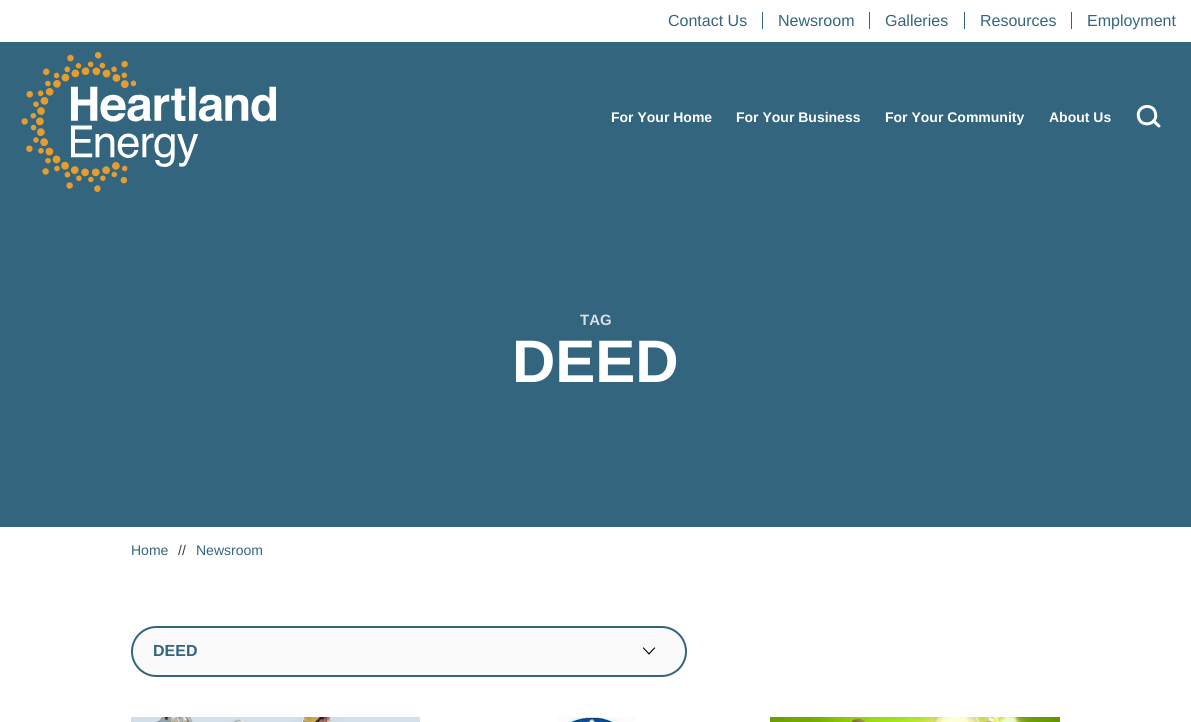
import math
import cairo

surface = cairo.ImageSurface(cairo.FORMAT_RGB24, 1191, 722)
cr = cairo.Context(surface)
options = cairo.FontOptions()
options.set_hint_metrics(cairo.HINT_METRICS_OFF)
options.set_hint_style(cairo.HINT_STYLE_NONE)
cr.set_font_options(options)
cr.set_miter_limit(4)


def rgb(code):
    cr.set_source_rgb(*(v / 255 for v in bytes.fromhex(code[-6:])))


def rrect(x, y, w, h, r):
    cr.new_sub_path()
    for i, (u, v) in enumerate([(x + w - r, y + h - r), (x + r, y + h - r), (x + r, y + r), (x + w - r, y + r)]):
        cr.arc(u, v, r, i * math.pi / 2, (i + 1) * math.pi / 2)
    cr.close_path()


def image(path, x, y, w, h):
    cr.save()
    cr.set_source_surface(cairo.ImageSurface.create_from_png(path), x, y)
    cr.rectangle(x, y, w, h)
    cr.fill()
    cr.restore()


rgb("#ffffff")
cr.paint()
for x, y, w, h, color in [
    (762, 12, 1, 17, "#34657f"),
    (869, 12, 1, 17, "#34657f"),
    (964, 12, 1, 17, "#34657f"),
    (1071, 12, 1, 17, "#34657f"),
    (0, 42, 1191, 485, "#34657f"),
]:
    rgb(color)
    cr.rectangle(x, y, w, h)
    cr.fill()
image("img/1.png", 21, 52, 255, 140)
cr.new_path()
cr.move_to(1155.5, 113.5)
cr.curve_to(1158, 125, 1140.5, 128, 1138.5, 117)
cr.curve_to(1136, 105.5, 1153.5, 102, 1155.5, 113.5)
cr.close_path()
rgb("#ffffff")
cr.set_line_width(3)
cr.stroke()
cr.new_path()
cr.move_to(1153.5, 121)
cr.line_to(1159, 126)
cr.set_line_cap(cairo.LINE_CAP_ROUND)
cr.stroke()
rgb("#fafafa")
rrect(131, 626, 556, 51, 25.5)
cr.fill()
image("img/2.png", 642, 647, 14, 8)
rrect(132, 627, 554, 49, 24.5)
rgb("#34657f")
cr.set_line_width(2)
cr.set_line_cap(cairo.LINE_CAP_BUTT)
cr.stroke()
image("img/3.png", 131, 717, 289, 5)
image("img/4.png", 557, 717, 78, 5)
image("img/5.png", 770, 717, 290, 5)
cr.select_font_face("Liberation Sans")
cr.set_font_size(16)
for x, y, s in [
    (668, 26, "Contact Us"),
    (778, 26, "Newsroom"),
    (885, 26, "Galleries"),
    (980, 26, "Resources"),
    (1087, 26, "Employment"),
]:
    cr.move_to(x, y)
    cr.show_text(s)
cr.select_font_face("Liberation Sans", cairo.FONT_SLANT_NORMAL, cairo.FONT_WEIGHT_BOLD)
cr.set_font_size(14)
rgb("#ffffff")
for x, y, s in [
    (611, 122, "For Your Home"),
    (736, 122, "For Your Business"),
    (885, 122, "For Your Community"),
    (1049, 122, "About Us"),
]:
    cr.move_to(x, y)
    cr.show_text(s)
cr.set_font_size(15)
rgb("#d6e0e5")
cr.move_to(580, 325)
cr.show_text("TAG")
cr.set_font_size(60)
rgb("#ffffff")
cr.move_to(512, 382)
cr.show_text("DEED")
cr.select_font_face("Liberation Sans")
cr.set_font_size(14)
rgb("#34657f")
cr.move_to(131, 555)
cr.show_text("Home")
rgb("#3e3e3e")
cr.move_to(178, 555)
cr.show_text("//")
rgb("#34657f")
cr.move_to(196, 555)
cr.show_text("Newsroom")
cr.select_font_face("Liberation Sans", cairo.FONT_SLANT_NORMAL, cairo.FONT_WEIGHT_BOLD)
cr.set_font_size(16)
cr.move_to(153, 656)
cr.show_text("DEED")
surface.write_to_png("page.png")
